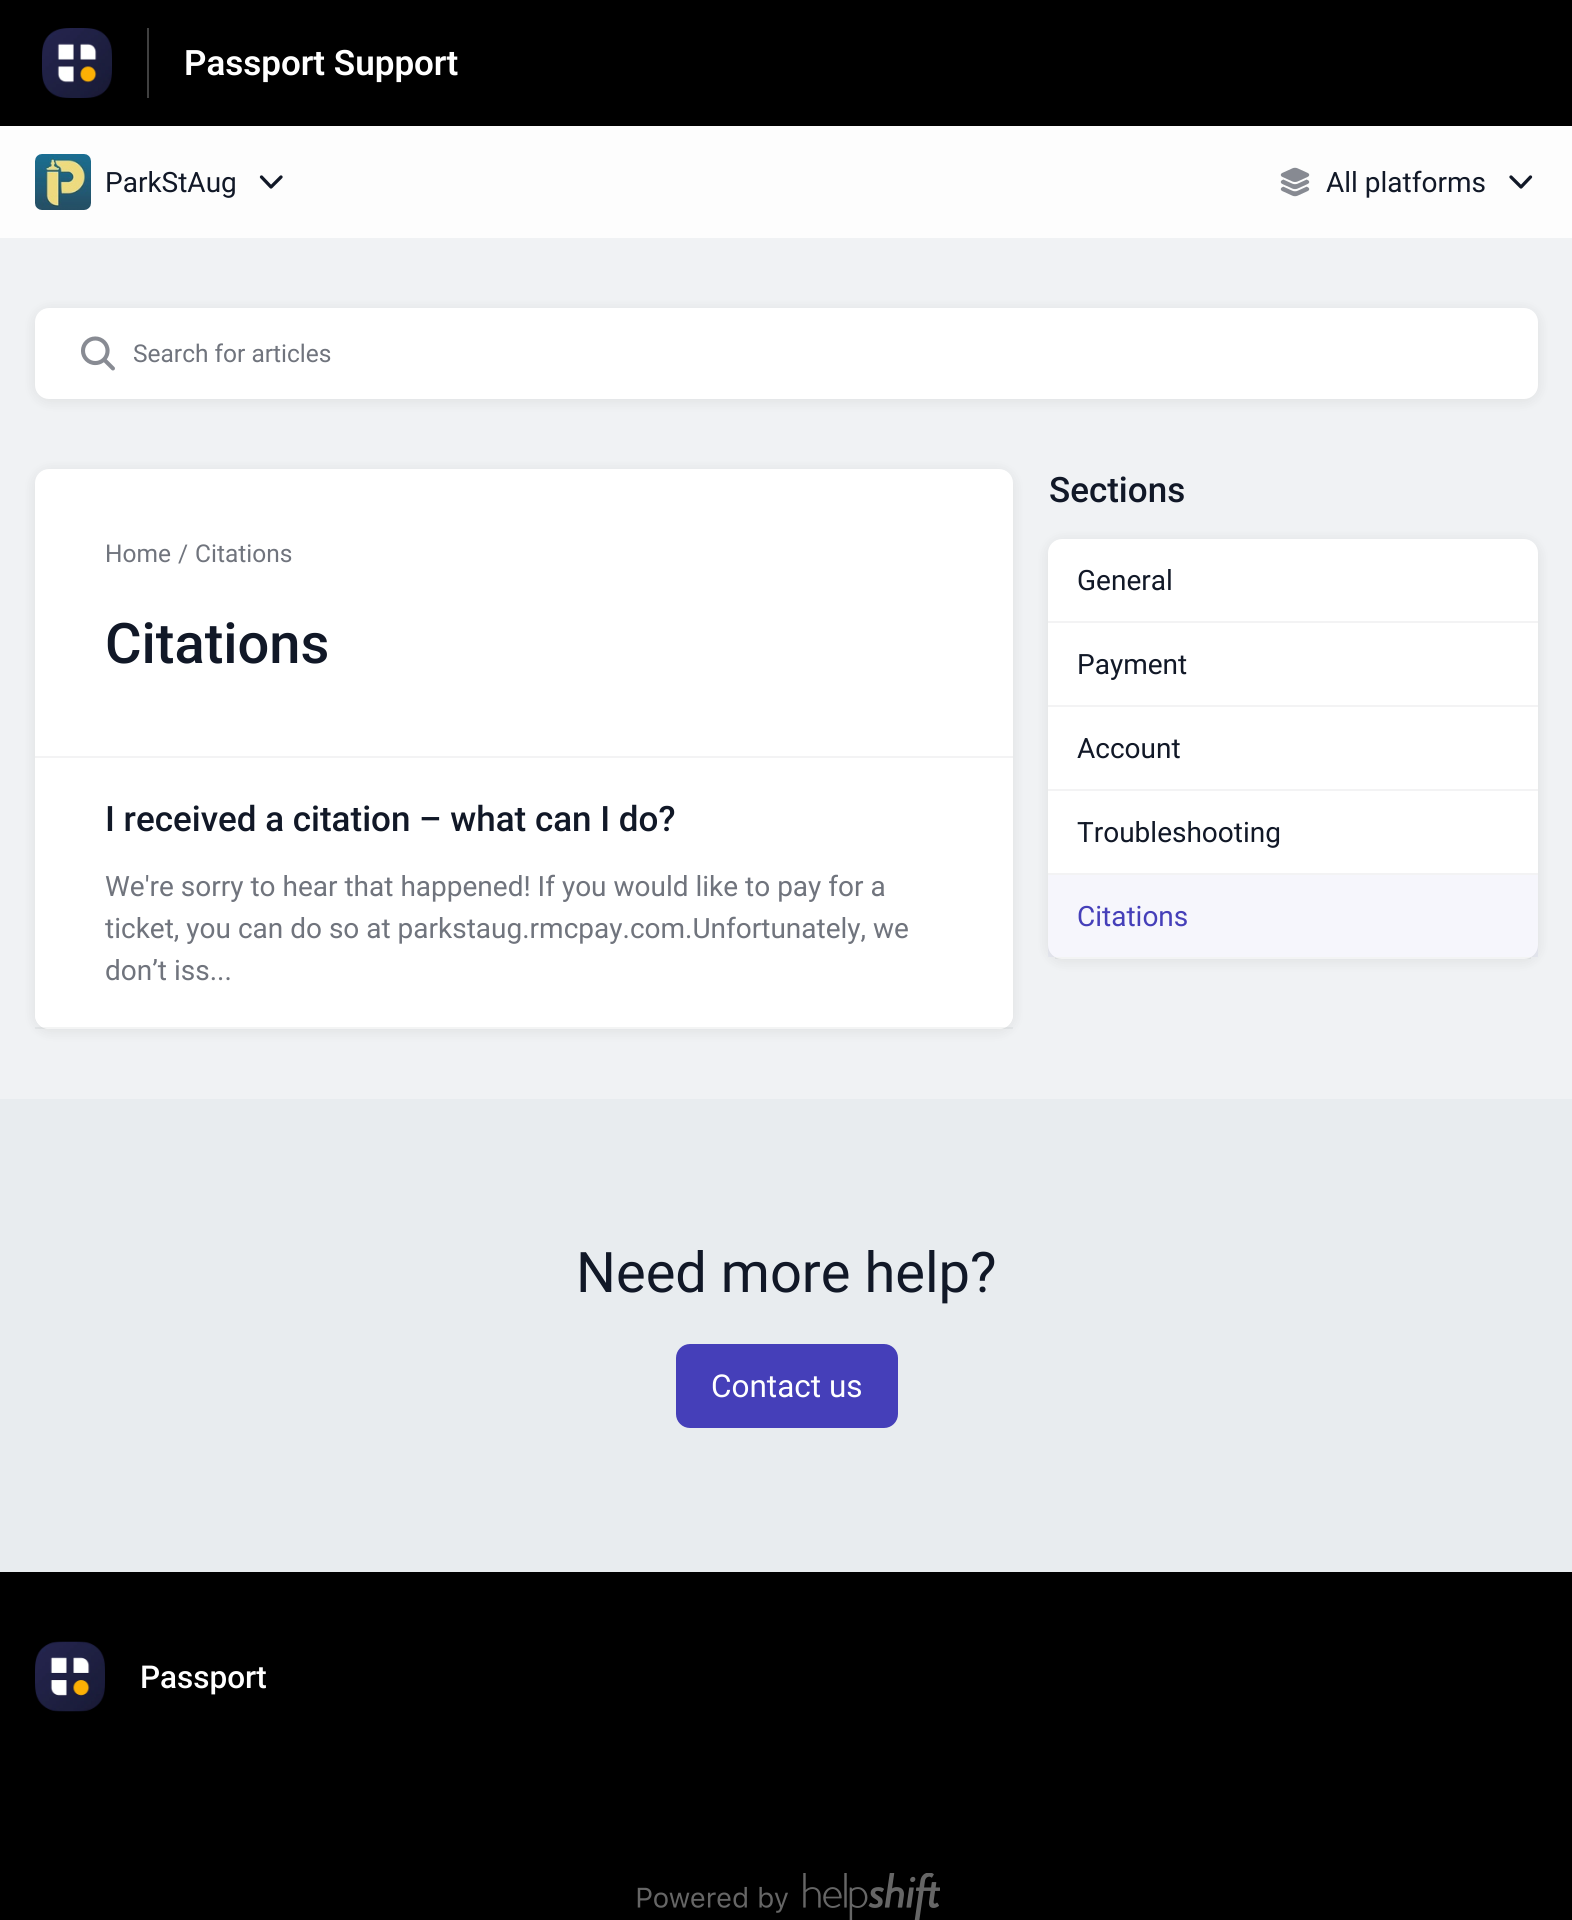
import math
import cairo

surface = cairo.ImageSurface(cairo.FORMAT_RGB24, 1572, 1920)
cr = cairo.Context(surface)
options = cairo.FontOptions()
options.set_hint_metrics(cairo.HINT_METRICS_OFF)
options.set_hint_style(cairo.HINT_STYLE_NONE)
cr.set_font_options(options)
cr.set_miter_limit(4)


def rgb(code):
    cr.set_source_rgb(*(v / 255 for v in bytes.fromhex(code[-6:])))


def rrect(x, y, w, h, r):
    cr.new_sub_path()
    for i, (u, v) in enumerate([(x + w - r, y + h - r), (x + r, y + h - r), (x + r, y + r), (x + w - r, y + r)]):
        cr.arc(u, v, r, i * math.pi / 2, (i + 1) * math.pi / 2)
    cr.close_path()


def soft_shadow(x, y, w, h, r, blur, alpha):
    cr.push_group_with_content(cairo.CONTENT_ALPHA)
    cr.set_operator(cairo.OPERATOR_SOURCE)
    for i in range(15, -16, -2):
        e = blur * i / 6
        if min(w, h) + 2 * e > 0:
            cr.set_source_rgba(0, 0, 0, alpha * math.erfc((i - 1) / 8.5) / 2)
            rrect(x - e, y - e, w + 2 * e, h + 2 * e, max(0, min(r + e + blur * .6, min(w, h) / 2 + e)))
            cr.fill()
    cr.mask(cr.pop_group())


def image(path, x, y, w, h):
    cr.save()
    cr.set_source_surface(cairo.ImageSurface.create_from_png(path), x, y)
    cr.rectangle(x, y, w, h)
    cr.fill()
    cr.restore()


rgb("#fdfdfd")
cr.paint()
rgb("#000000")
cr.rectangle(0, 0, 1572, 126)
cr.fill()
rgb("#404040")
cr.rectangle(147, 28, 2, 70)
cr.fill()
image("img/1.png", 42, 28, 70, 70)
image("img/2.png", 35, 154, 56, 56)
cr.new_path()
cr.move_to(261.5, 177)
cr.line_to(271, 187)
cr.line_to(281, 177)
rgb("#111827")
cr.set_line_width(3.3)
cr.set_line_cap(cairo.LINE_CAP_ROUND)
cr.set_line_join(cairo.LINE_JOIN_ROUND)
cr.stroke()
image("img/3.png", 1280, 167, 30, 30)
cr.new_path()
cr.move_to(1511, 177)
cr.line_to(1521, 187)
cr.line_to(1530.5, 177)
cr.stroke()
rgb("#f0f2f4")
cr.rectangle(0, 238, 1572, 861)
cr.fill()
rgb("#000000")
soft_shadow(35, 310, 1503, 91, 14, 7, 0.08)
rgb("#ffffff")
rrect(35, 308, 1503, 91, 14)
cr.fill()
image("img/4.png", 81, 336, 34, 35)
rgb("#000000")
soft_shadow(35, 471, 978, 560, 14, 7, 0.08)
rgb("#ffffff")
rrect(35, 469, 978, 560, 14)
cr.fill()
rgb("#f3f3f4")
cr.rectangle(35, 756, 978, 2)
cr.fill()
rgb("#ffffff")
cr.new_path()
cr.move_to(35, 758)
cr.line_to(1013, 758)
cr.line_to(1013, 1015)
cr.curve_to(1013, 1022.5, 1006.5, 1029, 999, 1029)
cr.line_to(49, 1029)
cr.curve_to(41.5, 1029, 35, 1022.5, 35, 1015)
cr.close_path()
cr.fill()
cr.set_source_rgba(0.067, 0.094, 0.153, 0.05)
cr.rectangle(35, 1027, 978, 2)
cr.fill()
rgb("#000000")
soft_shadow(1048, 541, 490, 420, 14, 7, 0.08)
rgb("#ffffff")
rrect(1048, 539, 490, 420, 14)
cr.fill()
rgb("#f3f3f4")
cr.rectangle(1048, 621, 490, 2)
cr.rectangle(1048, 705, 490, 2)
cr.rectangle(1048, 789, 490, 2)
cr.rectangle(1048, 873, 490, 2)
cr.fill()
cr.set_source_rgba(0.067, 0.094, 0.153, 0.05)
cr.rectangle(1055, 957, 476, 2)
cr.fill()
cr.set_source_rgba(0.271, 0.247, 0.725, 0.05)
cr.rectangle(1048, 875, 490, 82)
cr.fill()
rgb("#e8ecef")
cr.rectangle(0, 1099, 1572, 473)
cr.fill()
rgb("#453fb9")
rrect(676, 1344, 222, 84, 14)
cr.fill()
rgb("#000000")
cr.rectangle(0, 1572, 1572, 348)
cr.fill()
image("img/5.png", 35, 1641, 70, 71)
image("img/6.png", 637, 1873, 303, 47)
cr.select_font_face("Roboto SemiBold")
cr.set_font_size(35)
rgb("#ffffff")
cr.move_to(184, 75)
cr.show_text("Passport Support")
cr.select_font_face("Roboto")
cr.set_font_size(28)
rgb("#111827")
cr.move_to(105, 192)
cr.show_text("ParkStAug")
cr.move_to(1326, 192)
cr.show_text("All platforms")
cr.set_font_size(24.5)
rgb("#70747d")
for x, y, s in [
    (133, 362, "Search for articles"),
    (105, 562, "Home"),
    (178, 562, "/"),
    (195, 562, "Citations"),
]:
    cr.move_to(x, y)
    cr.show_text(s)
cr.select_font_face("Roboto Medium")
cr.set_font_size(56)
rgb("#111827")
cr.move_to(105, 663)
cr.show_text("Citations")
cr.set_font_size(35)
cr.move_to(105, 831)
cr.show_text("I received a citation – what can I do?")
cr.select_font_face("Roboto")
cr.set_font_size(28)
rgb("#70747d")
for x, y, s in [
    (105, 896, "We're sorry to hear that happened! If you would like to pay for a"),
    (105, 938, "ticket, you can do so at parkstaug.rmcpay.com.Unfortunately, we"),
    (105, 980, "don’t iss..."),
]:
    cr.move_to(x, y)
    cr.show_text(s)
cr.select_font_face("Roboto Medium")
cr.set_font_size(35)
rgb("#111827")
cr.move_to(1049, 502)
cr.show_text("Sections")
cr.select_font_face("Roboto")
cr.set_font_size(28)
for x, y, s in [
    (1077, 590, "General"),
    (1077, 674, "Payment"),
    (1077, 758, "Account"),
    (1077, 842, "Troubleshooting"),
]:
    cr.move_to(x, y)
    cr.show_text(s)
rgb("#453fb9")
cr.move_to(1077, 926)
cr.show_text("Citations")
cr.set_font_size(56)
rgb("#111827")
cr.move_to(576, 1292)
cr.show_text("Need more help?")
cr.set_font_size(31.5)
rgb("#ffffff")
cr.move_to(711, 1397)
cr.show_text("Contact us")
cr.select_font_face("Roboto Medium")
cr.move_to(140, 1688)
cr.show_text("Passport")
surface.write_to_png("page.png")
